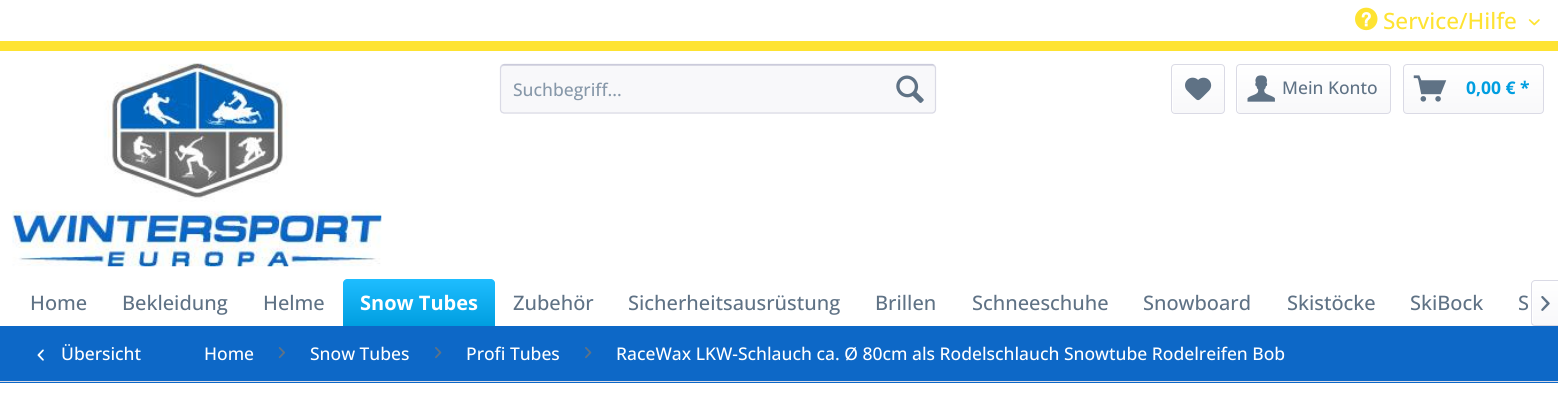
import math
import cairo

surface = cairo.ImageSurface(cairo.FORMAT_RGB24, 1558, 414)
cr = cairo.Context(surface)
options = cairo.FontOptions()
options.set_hint_metrics(cairo.HINT_METRICS_OFF)
options.set_hint_style(cairo.HINT_STYLE_NONE)
cr.set_font_options(options)
cr.set_miter_limit(4)


def rgb(code):
    cr.set_source_rgb(*(v / 255 for v in bytes.fromhex(code[-6:])))


def rrect(x, y, w, h, r):
    cr.new_sub_path()
    for i, (u, v) in enumerate([(x + w - r, y + h - r), (x + r, y + h - r), (x + r, y + r), (x + w - r, y + r)]):
        cr.arc(u, v, r, i * math.pi / 2, (i + 1) * math.pi / 2)
    cr.close_path()


def image(path, x, y, w, h):
    cr.save()
    cr.set_source_surface(cairo.ImageSurface.create_from_png(path), x, y)
    cr.rectangle(x, y, w, h)
    cr.fill()
    cr.restore()


rgb("#ffffff")
cr.paint()
image("img/1.png", 1355, 7, 23, 24)
image("img/2.png", 1528, 19, 12, 7)
rgb("#fee332")
cr.rectangle(0, 41, 1558, 10)
cr.fill()
image("img/3.png", 12, 63, 370, 204)
rgb("#f8f8fa")
rrect(500, 64, 436, 50, 4)
cr.fill()
rgb("#dadae5")
cr.new_path()
cr.move_to(504, 66)
cr.line_to(932, 66)
cr.curve_to(934, 66, 935, 67, 935, 69)
cr.curve_to(935, 67, 935, 65, 932, 65)
cr.line_to(504, 65)
cr.line_to(501, 66)
cr.line_to(501, 69)
cr.curve_to(501, 67, 502, 66, 504, 66)
cr.close_path()
cr.fill()
cr.new_path()
cr.move_to(501.5, 65.5)
cr.line_to(504, 64.5)
cr.line_to(932.5, 64.5)
cr.line_to(934.5, 65.5)
rgb("#cbcbdb")
cr.set_line_width(1.2)
cr.stroke()
cr.new_path()
cr.move_to(934.5, 65.5)
cr.line_to(935.5, 67.5)
cr.line_to(935.5, 110)
cr.line_to(934.5, 112)
cr.line_to(932.5, 113)
cr.line_to(504, 113)
cr.line_to(501.5, 112)
cr.line_to(500.5, 110)
cr.line_to(500.5, 67.5)
cr.line_to(501.5, 65.5)
rgb("#dadae5")
cr.stroke()
image("img/4.png", 896, 75, 28, 28)
gradient = cairo.LinearGradient(1198, 65, 1198, 113)
gradient.add_color_stop_rgba(0, 1, 1, 1, 1)
gradient.add_color_stop_rgba(1, 0.973, 0.973, 0.98, 1)
cr.set_source(gradient)
rrect(1173, 65, 51, 48, 2.5)
cr.fill()
rrect(1171.5, 64.5, 53, 49, 3.5)
rgb("#dadae5")
cr.set_line_width(1)
cr.stroke()
image("img/5.png", 1185, 77, 27, 24)
gradient = cairo.LinearGradient(1314, 65, 1314, 113)
gradient.add_color_stop_rgba(0, 1, 1, 1, 1)
gradient.add_color_stop_rgba(1, 0.973, 0.973, 0.98, 1)
cr.set_source(gradient)
rrect(1238, 65, 152, 48, 2.5)
cr.fill()
rrect(1236.5, 64.5, 154, 49, 3.5)
rgb("#dadae5")
cr.stroke()
image("img/6.png", 1247, 75, 28, 27)
gradient = cairo.LinearGradient(1473, 65, 1473, 113)
gradient.add_color_stop_rgba(0, 1, 1, 1, 1)
gradient.add_color_stop_rgba(1, 0.973, 0.973, 0.98, 1)
cr.set_source(gradient)
rrect(1404, 65, 139, 48, 2.5)
cr.fill()
rrect(1403.5, 64.5, 140, 49, 3.5)
rgb("#dadae5")
cr.stroke()
image("img/7.png", 1413, 75, 34, 27)
gradient = cairo.LinearGradient(419, 279, 419, 326)
gradient.add_color_stop_rgba(0, 0.118, 0.741, 1, 1)
gradient.add_color_stop_rgba(1, 0, 0.62, 0.878, 1)
cr.set_source(gradient)
cr.new_path()
cr.move_to(347, 279)
cr.line_to(491, 279)
cr.curve_to(493, 279, 495, 281, 495, 283)
cr.line_to(495, 326)
cr.line_to(343, 326)
cr.line_to(343, 283)
cr.curve_to(343, 281, 345, 279, 347, 279)
cr.close_path()
cr.fill()
gradient = cairo.LinearGradient(1546, 281, 1546, 325)
gradient.add_color_stop_rgba(0, 1, 1, 1, 1)
gradient.add_color_stop_rgba(1, 0.973, 0.973, 0.98, 1)
cr.set_source(gradient)
cr.new_path()
cr.move_to(1535.5, 281)
cr.line_to(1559, 281)
cr.line_to(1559, 325)
cr.line_to(1535.5, 325)
cr.curve_to(1534, 325, 1533, 324, 1533, 322.5)
cr.line_to(1533, 283.5)
cr.curve_to(1533, 282, 1534, 281, 1535.5, 281)
cr.close_path()
cr.fill()
rgb("#dadae5")
cr.set_fill_rule(cairo.FILL_RULE_EVEN_ODD)
cr.new_path()
cr.move_to(1535, 280)
cr.line_to(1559, 280)
cr.line_to(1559, 326)
cr.line_to(1535, 326)
cr.curve_to(1533, 326, 1531, 325, 1531, 322)
cr.line_to(1531, 284)
cr.curve_to(1531, 282, 1533, 280, 1535, 280)
cr.close_path()
cr.move_to(1535, 281)
cr.line_to(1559, 281)
cr.line_to(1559, 325)
cr.line_to(1535, 325)
cr.curve_to(1534, 325, 1532, 324, 1532, 322)
cr.line_to(1532, 284)
cr.curve_to(1532, 282, 1534, 281, 1535, 281)
cr.close_path()
cr.fill()
image("img/8.png", 1541, 296, 9, 15)
rgb("#0d68c7")
cr.rectangle(0, 326, 1558, 57)
cr.fill()
rgb("#dadae5")
cr.rectangle(0, 381, 1558, 1)
cr.fill()
image("img/9.png", 37, 349, 7, 12)
image("img/10.png", 278, 347, 7, 12)
image("img/11.png", 435, 347, 7, 12)
image("img/11.png", 585, 347, 7, 12)
cr.select_font_face("Open Sans Medium")
cr.set_font_size(22.5)
rgb("#fee332")
cr.move_to(1383, 29)
cr.show_text("Service/Hilfe")
cr.set_font_size(17.5)
rgb("#8798a9")
cr.move_to(513, 96)
cr.show_text("Suchbegriff...")
rgb("#5f7285")
cr.move_to(1282, 94)
cr.show_text("Mein Konto")
cr.select_font_face("Open Sans", cairo.FONT_SLANT_NORMAL, cairo.FONT_WEIGHT_BOLD)
rgb("#009ee0")
cr.move_to(1466, 94)
cr.show_text("0,00 € *")
cr.select_font_face("Open Sans Medium")
cr.set_font_size(20)
rgb("#5f7285")
for x, y, s in [
    (30, 310, "Home"),
    (122, 310, "Bekleidung"),
    (263, 310, "Helme"),
]:
    cr.move_to(x, y)
    cr.show_text(s)
cr.select_font_face("Open Sans", cairo.FONT_SLANT_NORMAL, cairo.FONT_WEIGHT_BOLD)
rgb("#ffffff")
cr.move_to(360, 310)
cr.show_text("Snow Tubes")
cr.select_font_face("Open Sans Medium")
rgb("#5f7285")
for x, y, s in [
    (513, 310, "Zubehör"),
    (628, 310, "Sicherheitsausrüstung"),
    (875, 310, "Brillen"),
    (972, 310, "Schneeschuhe"),
    (1143, 310, "Snowboard"),
    (1287, 310, "Skistöcke"),
    (1410, 310, "SkiBock"),
    (1518, 310, "S"),
]:
    cr.move_to(x, y)
    cr.show_text(s)
cr.set_font_size(17.5)
rgb("#ffffff")
for x, y, s in [
    (61, 360, "Übersicht"),
    (204, 360, "Home"),
    (310, 360, "Snow Tubes"),
    (466, 360, "Profi Tubes"),
    (616, 360, "RaceWax LKW-Schlauch ca. Ø 80cm als Rodelschlauch Snowtube Rodelreifen Bob"),
]:
    cr.move_to(x, y)
    cr.show_text(s)
surface.write_to_png("page.png")
